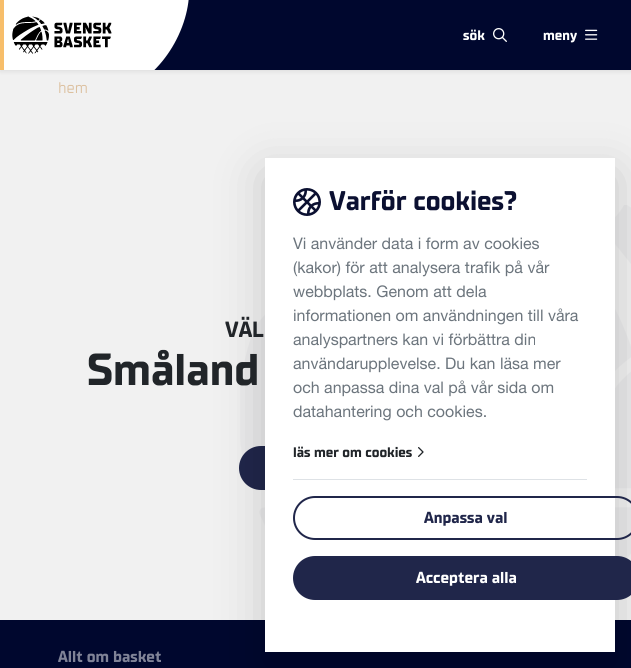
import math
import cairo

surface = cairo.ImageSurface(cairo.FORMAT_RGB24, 631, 668)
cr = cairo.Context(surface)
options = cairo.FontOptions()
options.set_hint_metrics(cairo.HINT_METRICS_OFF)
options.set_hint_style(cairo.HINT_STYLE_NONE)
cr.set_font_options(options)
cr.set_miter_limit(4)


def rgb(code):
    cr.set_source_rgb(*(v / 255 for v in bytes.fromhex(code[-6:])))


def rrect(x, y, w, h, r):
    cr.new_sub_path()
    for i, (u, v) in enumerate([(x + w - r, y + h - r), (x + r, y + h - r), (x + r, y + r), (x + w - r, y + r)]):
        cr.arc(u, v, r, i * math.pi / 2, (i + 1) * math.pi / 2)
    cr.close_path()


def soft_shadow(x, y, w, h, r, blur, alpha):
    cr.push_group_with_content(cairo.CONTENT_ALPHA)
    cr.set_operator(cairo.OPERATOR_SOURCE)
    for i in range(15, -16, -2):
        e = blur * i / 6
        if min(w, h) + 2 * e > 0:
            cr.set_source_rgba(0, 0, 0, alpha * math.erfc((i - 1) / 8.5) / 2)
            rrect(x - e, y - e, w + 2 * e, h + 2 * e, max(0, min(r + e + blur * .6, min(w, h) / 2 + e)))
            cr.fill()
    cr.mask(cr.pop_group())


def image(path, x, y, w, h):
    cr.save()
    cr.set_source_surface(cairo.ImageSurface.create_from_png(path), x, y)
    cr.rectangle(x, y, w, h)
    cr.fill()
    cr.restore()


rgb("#f1f1f1")
cr.paint()
rgb("#000000")
soft_shadow(0, 2, 631, 70, 0, 2, 0.07)
for x, y, w, h, color in [
    (154, 0, 477, 70, "#00072e"),
    (4, 0, 51, 70, "#ffffff"),
    (0, 0, 4, 70, "#f7be6a"),
]:
    rgb(color)
    cr.rectangle(x, y, w, h)
    cr.fill()
cr.save()
cr.rectangle(0, 0, 631, 70)
cr.clip()
rgb("#ffffff")
cr.new_path()
cr.move_to(54, 2)
cr.curve_to(71, -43, 114, -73, 149, -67)
cr.curve_to(185, -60, 199, -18, 182, 27)
cr.curve_to(165, 72, 123, 103, 87, 96)
cr.curve_to(52, 89, 37, 47, 54, 2)
cr.close_path()
cr.fill()
cr.restore()
image("img/1.png", 12, 16, 100, 38)
image("img/2.png", 493, 28, 14, 14)
image("img/3.png", 585, 29, 13, 11)
image("img/4.png", 240, 205, 391, 354)
rgb("#20264a")
rrect(240, 447, 151, 42, 21)
cr.fill_preserve()
cr.stroke()
rgb("#00072e")
cr.rectangle(0, 620, 631, 48)
cr.fill()
rgb("#000000")
soft_shadow(265, 174, 350, 494, 0, 24, 0.18)
rgb("#ffffff")
cr.rectangle(265, 158, 350, 494)
cr.fill()
image("img/5.png", 293, 188, 28, 28)
image("img/6.png", 418, 447, 6, 10)
rgb("#dee2e6")
cr.rectangle(293, 479, 294, 1)
cr.fill()
rrect(294, 497, 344, 42, 21)
rgb("#20264a")
cr.stroke()
rrect(294, 557, 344, 42, 21)
cr.fill_preserve()
cr.stroke()
cr.select_font_face("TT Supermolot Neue", cairo.FONT_SLANT_NORMAL, cairo.FONT_WEIGHT_BOLD)
cr.set_font_size(14)
rgb("#ffffff")
cr.move_to(463, 40)
cr.show_text("sök")
cr.move_to(543, 40)
cr.show_text("meny")
cr.select_font_face("TT Supermolot Neue")
cr.set_font_size(16)
rgb("#dcc09f")
cr.move_to(58, 93)
cr.show_text("hem")
cr.select_font_face("TT Supermolot Neue", cairo.FONT_SLANT_NORMAL, cairo.FONT_WEIGHT_BOLD)
cr.set_font_size(22)
rgb("#212529")
cr.move_to(225, 337)
cr.show_text("VÄL")
cr.set_font_size(45)
cr.move_to(87, 385)
cr.show_text("Småland")
cr.set_font_size(16)
rgb("#808397")
cr.move_to(58, 662)
cr.show_text("Allt om basket")
cr.set_font_size(27)
rgb("#0b1031")
cr.move_to(329, 210)
cr.show_text("Varför cookies?")
cr.select_font_face("Helvetica Neue")
cr.set_font_size(16)
rgb("#6c757d")
for x, y, s in [
    (293, 249, "Vi använder data i form av cookies"),
    (293, 273, "(kakor) för att analysera trafik på vår"),
    (293, 297, "webbplats. Genom att dela"),
    (293, 321, "informationen om användningen till våra"),
    (293, 345, "analyspartners kan vi förbättra din"),
    (293, 369, "användarupplevelse. Du kan läsa mer"),
    (293, 393, "och anpassa dina val på vår sida om"),
    (293, 417, "datahantering och cookies."),
]:
    cr.move_to(x, y)
    cr.show_text(s)
cr.select_font_face("TT Supermolot Neue", cairo.FONT_SLANT_NORMAL, cairo.FONT_WEIGHT_BOLD)
cr.set_font_size(14)
rgb("#212529")
cr.move_to(293, 457)
cr.show_text("läs mer om cookies")
cr.set_font_size(16)
rgb("#20264a")
cr.move_to(424, 523)
cr.show_text("Anpassa val")
rgb("#ffffff")
cr.move_to(416, 583)
cr.show_text("Acceptera alla")
surface.write_to_png("page.png")
